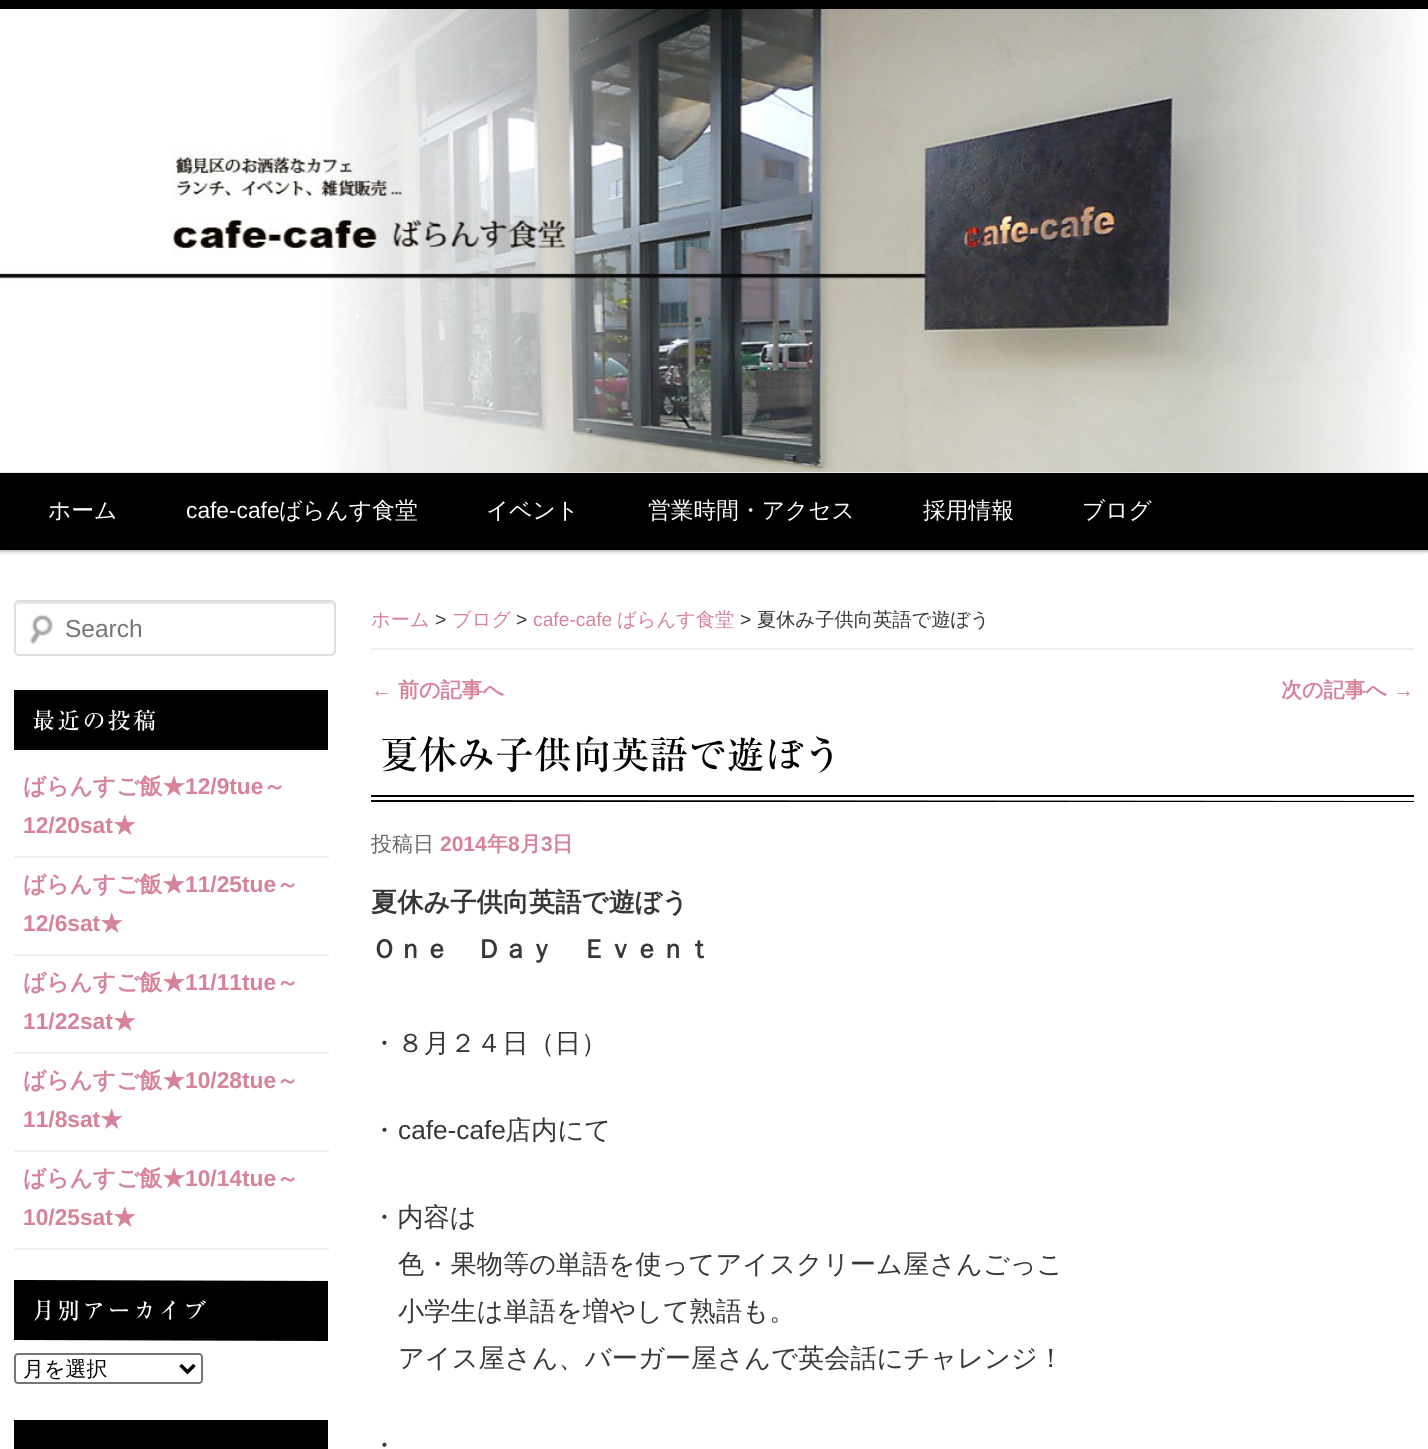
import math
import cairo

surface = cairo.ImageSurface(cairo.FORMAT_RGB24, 1428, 1449)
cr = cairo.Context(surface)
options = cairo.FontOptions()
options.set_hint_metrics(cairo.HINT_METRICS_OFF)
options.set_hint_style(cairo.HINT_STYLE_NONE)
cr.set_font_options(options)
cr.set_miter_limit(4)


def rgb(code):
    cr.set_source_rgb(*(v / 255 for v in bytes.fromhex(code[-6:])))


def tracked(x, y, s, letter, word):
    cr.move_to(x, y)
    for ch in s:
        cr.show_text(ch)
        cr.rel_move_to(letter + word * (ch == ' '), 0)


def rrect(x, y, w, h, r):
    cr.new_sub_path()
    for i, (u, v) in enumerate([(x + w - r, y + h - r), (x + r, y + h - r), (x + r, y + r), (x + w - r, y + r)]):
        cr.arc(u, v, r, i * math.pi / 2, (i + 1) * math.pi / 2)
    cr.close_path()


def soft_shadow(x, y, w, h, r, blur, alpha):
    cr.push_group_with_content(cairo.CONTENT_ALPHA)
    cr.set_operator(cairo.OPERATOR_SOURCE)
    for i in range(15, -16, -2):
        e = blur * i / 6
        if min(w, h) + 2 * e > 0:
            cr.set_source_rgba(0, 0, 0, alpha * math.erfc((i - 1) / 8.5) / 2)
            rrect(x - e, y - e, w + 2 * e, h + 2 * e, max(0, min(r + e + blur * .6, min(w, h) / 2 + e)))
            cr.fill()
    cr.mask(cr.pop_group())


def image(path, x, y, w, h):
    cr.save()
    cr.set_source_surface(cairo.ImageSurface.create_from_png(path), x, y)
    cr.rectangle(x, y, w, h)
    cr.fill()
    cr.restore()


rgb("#ffffff")
cr.paint()
rgb("#000000")
cr.rectangle(0, 0, 1428, 9)
cr.fill()
rgb("#000000")
soft_shadow(0, 474, 1428, 77, 0, 2, 0.4)
image("img/1.png", 0, 9, 1428, 463)
rgb("#000000")
cr.rectangle(0, 473, 1428, 77)
cr.fill()
image("img/2.png", 29, 614, 24, 31)
rgb("#e6e6e6")
cr.new_path()
cr.move_to(19, 604)
cr.line_to(331, 604)
cr.curve_to(333, 604, 334, 605, 334, 607)
cr.line_to(334, 606)
cr.curve_to(334, 604, 332, 602, 330, 602)
cr.line_to(20, 602)
cr.curve_to(18, 602, 16, 604, 16, 606)
cr.line_to(16, 607)
cr.curve_to(16, 605, 17, 604, 19, 604)
cr.close_path()
cr.fill()
rrect(15, 601, 320, 54, 4)
rgb("#dddddd")
cr.stroke()
for x, y, w, h, color in [
    (14, 690, 314, 60, "#000000"),
    (14, 856, 315, 2, "#eeeeee"),
    (14, 954, 315, 2, "#eeeeee"),
    (14, 1052, 315, 2, "#eeeeee"),
    (14, 1150, 315, 2, "#eeeeee"),
    (14, 1248, 315, 2, "#eeeeee"),
]:
    rgb(color)
    cr.rectangle(x, y, w, h)
    cr.fill()
rgb("#000000")
cr.new_path()
cr.move_to(14, 1280)
cr.line_to(328, 1281)
cr.line_to(328, 1341)
cr.line_to(14, 1340)
cr.close_path()
cr.fill()
rrect(15, 1354, 187, 29, 3)
rgb("#767676")
cr.stroke()
cr.new_path()
cr.move_to(180.5, 1365)
cr.line_to(187.5, 1372)
cr.line_to(194.5, 1365)
rgb("#000000")
cr.set_line_width(3.5)
cr.stroke()
for x, y, w, h, color in [
    (14, 1420, 314, 29, "#000000"),
    (371, 648, 1043, 2, "#eeeeee"),
    (371, 795, 1043, 2, "#000000"),
]:
    rgb(color)
    cr.rectangle(x, y, w, h)
    cr.fill()
cr.new_path()
cr.move_to(371, 800)
cr.line_to(1414, 801)
cr.line_to(1414, 802)
cr.line_to(371, 802)
cr.close_path()
cr.fill()
cr.select_font_face("WenQuanYi Zen Hei Medium")
cr.set_font_size(22.75)
rgb("#ffffff")
cr.move_to(48, 518)
cr.show_text("ホーム")
cr.select_font_face("Liberation Sans")
cr.move_to(186, 518)
cr.show_text("cafe-cafe")
cr.select_font_face("WenQuanYi Zen Hei Medium")
for x, y, s in [
    (279, 518, "ばらんす食堂"),
    (486, 518, "イベント"),
    (648, 518, "営業時間・アクセス"),
    (923, 518, "採用情報"),
    (1082, 518, "ブログ"),
]:
    cr.move_to(x, y)
    cr.show_text(s)
cr.select_font_face("Liberation Sans")
cr.set_font_size(24.5)
rgb("#757575")
cr.move_to(65, 637)
cr.show_text("Search")
cr.select_font_face("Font")
cr.set_font_size(23)
rgb("#ffffff")
tracked(32, 729, "最近の投稿", 2.25, 0)
cr.select_font_face("WenQuanYi Zen Hei", cairo.FONT_SLANT_NORMAL, cairo.FONT_WEIGHT_BOLD)
cr.set_font_size(22.75)
rgb("#d68298")
cr.move_to(23, 794)
cr.show_text("ばらんすご飯★")
cr.select_font_face("Liberation Sans", cairo.FONT_SLANT_NORMAL, cairo.FONT_WEIGHT_BOLD)
cr.move_to(185, 794)
cr.show_text("12/9tue")
cr.select_font_face("WenQuanYi Zen Hei", cairo.FONT_SLANT_NORMAL, cairo.FONT_WEIGHT_BOLD)
cr.move_to(263, 794)
cr.show_text("～")
cr.select_font_face("Liberation Sans", cairo.FONT_SLANT_NORMAL, cairo.FONT_WEIGHT_BOLD)
cr.move_to(23, 833)
cr.show_text("12/20sat")
cr.select_font_face("WenQuanYi Zen Hei", cairo.FONT_SLANT_NORMAL, cairo.FONT_WEIGHT_BOLD)
cr.move_to(113, 833)
cr.show_text("★")
cr.move_to(23, 892)
cr.show_text("ばらんすご飯★")
cr.select_font_face("Liberation Sans", cairo.FONT_SLANT_NORMAL, cairo.FONT_WEIGHT_BOLD)
cr.move_to(185, 892)
cr.show_text("11/25tue")
cr.select_font_face("WenQuanYi Zen Hei", cairo.FONT_SLANT_NORMAL, cairo.FONT_WEIGHT_BOLD)
cr.move_to(276, 892)
cr.show_text("～")
cr.select_font_face("Liberation Sans", cairo.FONT_SLANT_NORMAL, cairo.FONT_WEIGHT_BOLD)
cr.move_to(23, 931)
cr.show_text("12/6sat")
cr.select_font_face("WenQuanYi Zen Hei", cairo.FONT_SLANT_NORMAL, cairo.FONT_WEIGHT_BOLD)
cr.move_to(100, 931)
cr.show_text("★")
cr.move_to(23, 990)
cr.show_text("ばらんすご飯★")
cr.select_font_face("Liberation Sans", cairo.FONT_SLANT_NORMAL, cairo.FONT_WEIGHT_BOLD)
cr.move_to(185, 990)
cr.show_text("11/11tue")
cr.select_font_face("WenQuanYi Zen Hei", cairo.FONT_SLANT_NORMAL, cairo.FONT_WEIGHT_BOLD)
cr.move_to(276, 990)
cr.show_text("～")
cr.select_font_face("Liberation Sans", cairo.FONT_SLANT_NORMAL, cairo.FONT_WEIGHT_BOLD)
cr.move_to(23, 1029)
cr.show_text("11/22sat")
cr.select_font_face("WenQuanYi Zen Hei", cairo.FONT_SLANT_NORMAL, cairo.FONT_WEIGHT_BOLD)
cr.move_to(113, 1029)
cr.show_text("★")
cr.move_to(23, 1088)
cr.show_text("ばらんすご飯★")
cr.select_font_face("Liberation Sans", cairo.FONT_SLANT_NORMAL, cairo.FONT_WEIGHT_BOLD)
cr.move_to(185, 1088)
cr.show_text("10/28tue")
cr.select_font_face("WenQuanYi Zen Hei", cairo.FONT_SLANT_NORMAL, cairo.FONT_WEIGHT_BOLD)
cr.move_to(276, 1088)
cr.show_text("～")
cr.select_font_face("Liberation Sans", cairo.FONT_SLANT_NORMAL, cairo.FONT_WEIGHT_BOLD)
cr.move_to(23, 1127)
cr.show_text("11/8sat")
cr.select_font_face("WenQuanYi Zen Hei", cairo.FONT_SLANT_NORMAL, cairo.FONT_WEIGHT_BOLD)
cr.move_to(100, 1127)
cr.show_text("★")
cr.move_to(23, 1186)
cr.show_text("ばらんすご飯★")
cr.select_font_face("Liberation Sans", cairo.FONT_SLANT_NORMAL, cairo.FONT_WEIGHT_BOLD)
cr.move_to(185, 1186)
cr.show_text("10/14tue")
cr.select_font_face("WenQuanYi Zen Hei", cairo.FONT_SLANT_NORMAL, cairo.FONT_WEIGHT_BOLD)
cr.move_to(276, 1186)
cr.show_text("～")
cr.select_font_face("Liberation Sans", cairo.FONT_SLANT_NORMAL, cairo.FONT_WEIGHT_BOLD)
cr.move_to(23, 1225)
cr.show_text("10/25sat")
cr.select_font_face("WenQuanYi Zen Hei", cairo.FONT_SLANT_NORMAL, cairo.FONT_WEIGHT_BOLD)
cr.move_to(113, 1225)
cr.show_text("★")
cr.select_font_face("Font")
cr.set_font_size(23)
rgb("#ffffff")
tracked(32, 1319, "月別アーカイブ", 2.25, 0)
cr.select_font_face("WenQuanYi Zen Hei Medium")
cr.set_font_size(21)
rgb("#000000")
cr.move_to(23, 1376)
cr.show_text("月を選択")
cr.set_font_size(19.25)
rgb("#d68298")
cr.move_to(371, 626)
cr.show_text("ホーム")
cr.select_font_face("Liberation Sans")
rgb("#373737")
cr.move_to(435, 626)
cr.show_text(">")
cr.select_font_face("WenQuanYi Zen Hei Medium")
rgb("#d68298")
cr.move_to(452, 626)
cr.show_text("ブログ")
cr.select_font_face("Liberation Sans")
rgb("#373737")
cr.move_to(516, 626)
cr.show_text(">")
rgb("#d68298")
cr.move_to(533, 626)
cr.show_text("cafe-cafe")
cr.select_font_face("WenQuanYi Zen Hei Medium")
cr.move_to(617, 626)
cr.show_text("ばらんす食堂")
cr.select_font_face("Liberation Sans")
rgb("#373737")
cr.move_to(740, 626)
cr.show_text(">")
cr.select_font_face("WenQuanYi Zen Hei Medium")
cr.move_to(757, 626)
cr.show_text("夏休み子供向英語で遊ぼう")
cr.select_font_face("Liberation Sans")
cr.set_font_size(21)
rgb("#d68298")
cr.move_to(371, 697)
cr.show_text("←")
cr.select_font_face("WenQuanYi Zen Hei", cairo.FONT_SLANT_NORMAL, cairo.FONT_WEIGHT_BOLD)
cr.move_to(398, 697)
cr.show_text("前の記事へ")
cr.move_to(1281, 697)
cr.show_text("次の記事へ")
cr.select_font_face("Liberation Sans")
cr.move_to(1393, 697)
cr.show_text("→")
cr.select_font_face("Font")
cr.set_font_size(38.5)
rgb("#000000")
cr.move_to(380, 769)
cr.show_text("夏休み子供向英語で遊ぼう")
cr.select_font_face("WenQuanYi Zen Hei Medium")
cr.set_font_size(21)
rgb("#666666")
cr.move_to(371, 851)
cr.show_text("投稿日")
cr.select_font_face("Liberation Sans", cairo.FONT_SLANT_NORMAL, cairo.FONT_WEIGHT_BOLD)
rgb("#d68298")
cr.move_to(440, 851)
cr.show_text("2014")
cr.select_font_face("WenQuanYi Zen Hei", cairo.FONT_SLANT_NORMAL, cairo.FONT_WEIGHT_BOLD)
cr.move_to(487, 851)
cr.show_text("年")
cr.select_font_face("Liberation Sans", cairo.FONT_SLANT_NORMAL, cairo.FONT_WEIGHT_BOLD)
cr.move_to(508, 851)
cr.show_text("8")
cr.select_font_face("WenQuanYi Zen Hei", cairo.FONT_SLANT_NORMAL, cairo.FONT_WEIGHT_BOLD)
cr.move_to(520, 851)
cr.show_text("月")
cr.select_font_face("Liberation Sans", cairo.FONT_SLANT_NORMAL, cairo.FONT_WEIGHT_BOLD)
cr.move_to(541, 851)
cr.show_text("3")
cr.select_font_face("WenQuanYi Zen Hei", cairo.FONT_SLANT_NORMAL, cairo.FONT_WEIGHT_BOLD)
cr.move_to(552, 851)
cr.show_text("日")
cr.set_font_size(26.25)
rgb("#373737")
cr.move_to(371, 911)
cr.show_text("夏休み子供向英語で遊ぼう")
cr.move_to(371, 958)
cr.show_text("Ｏｎｅ　Ｄａｙ　Ｅｖｅｎｔ")
cr.select_font_face("WenQuanYi Zen Hei Medium")
cr.move_to(371, 1052)
cr.show_text("・８月２４日（日）")
cr.move_to(371, 1139)
cr.show_text("・")
cr.select_font_face("Liberation Sans")
cr.move_to(398, 1139)
cr.show_text("cafe-cafe")
cr.select_font_face("WenQuanYi Zen Hei Medium")
for x, y, s in [
    (505, 1139, "店内にて"),
    (371, 1226, "・内容は"),
    (398, 1273, "色・果物等の単語を使ってアイスクリーム屋さんごっこ"),
    (398, 1320, "小学生は単語を増やして熟語も。"),
    (398, 1367, "アイス屋さん、バーガー屋さんで英会話にチャレンジ！"),
    (371, 1454, "・"),
]:
    cr.move_to(x, y)
    cr.show_text(s)
surface.write_to_png("page.png")
